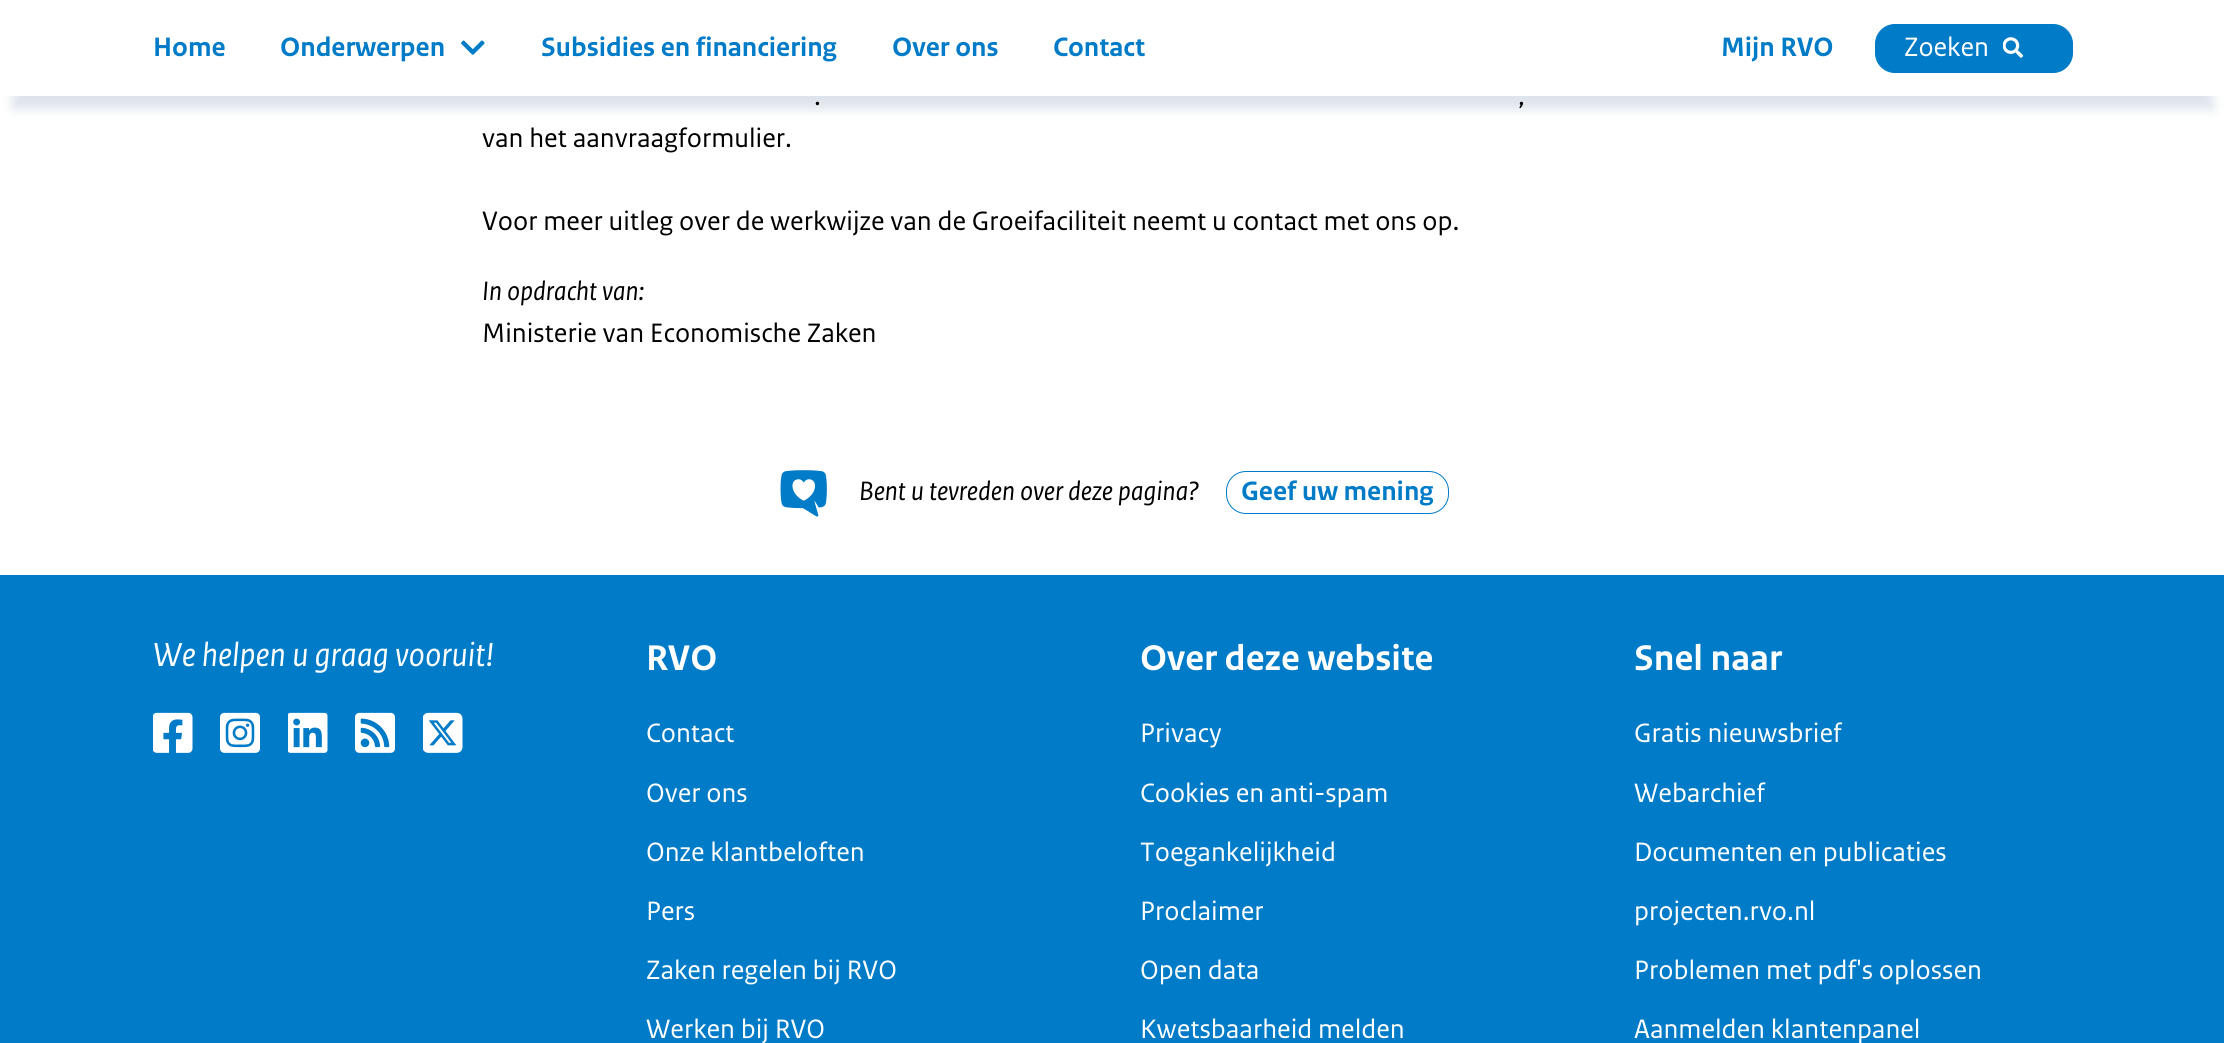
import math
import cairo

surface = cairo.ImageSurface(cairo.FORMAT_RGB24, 2224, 1043)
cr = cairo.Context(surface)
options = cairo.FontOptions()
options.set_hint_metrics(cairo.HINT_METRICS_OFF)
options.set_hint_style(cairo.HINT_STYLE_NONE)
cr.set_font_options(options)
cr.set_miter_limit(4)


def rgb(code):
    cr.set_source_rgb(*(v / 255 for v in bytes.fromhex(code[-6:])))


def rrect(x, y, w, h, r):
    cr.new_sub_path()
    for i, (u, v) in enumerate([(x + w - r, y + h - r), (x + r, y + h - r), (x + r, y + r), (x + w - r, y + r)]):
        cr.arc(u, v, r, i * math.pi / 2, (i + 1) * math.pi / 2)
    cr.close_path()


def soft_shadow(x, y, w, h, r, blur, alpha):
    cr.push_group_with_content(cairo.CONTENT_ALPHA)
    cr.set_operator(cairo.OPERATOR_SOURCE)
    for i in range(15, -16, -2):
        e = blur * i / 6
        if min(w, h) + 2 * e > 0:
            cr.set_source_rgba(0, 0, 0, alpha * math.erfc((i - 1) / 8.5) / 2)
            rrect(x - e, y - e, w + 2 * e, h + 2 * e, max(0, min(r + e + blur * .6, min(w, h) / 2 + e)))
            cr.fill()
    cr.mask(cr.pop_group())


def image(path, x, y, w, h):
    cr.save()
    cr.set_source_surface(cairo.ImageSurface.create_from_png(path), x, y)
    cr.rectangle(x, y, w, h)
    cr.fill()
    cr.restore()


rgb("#ffffff")
cr.paint()
rgb("#154273")
soft_shadow(13, -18, 2200, 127, 0, 6, 0.15)
rgb("#ffffff")
cr.rectangle(4, 0, 2218, 96)
cr.fill()
image("img/1.png", 461, 40, 24, 15)
rgb("#007bc7")
rrect(1875.5, 24.5, 197, 48, 19.5)
cr.fill_preserve()
cr.set_line_width(1)
cr.stroke()
image("img/2.png", 2003, 37, 21, 21)
image("img/3.png", 780, 470, 47, 47)
rrect(1226.5, 471.5, 222, 42, 19.5)
cr.stroke()
cr.rectangle(0, 575, 2224, 468)
cr.fill()
image("img/4.png", 153, 712, 40, 41)
image("img/5.png", 220, 712, 40, 41)
image("img/6.png", 288, 712, 40, 41)
image("img/7.png", 355, 712, 40, 41)
image("img/8.png", 423, 712, 40, 41)
cr.select_font_face("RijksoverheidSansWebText", cairo.FONT_SLANT_NORMAL, cairo.FONT_WEIGHT_BOLD)
cr.set_font_size(28)
for x, y, s in [
    (153, 56, "Home"),
    (280, 56, "Onderwerpen"),
    (541, 56, "Subsidies en financiering"),
    (892, 56, "Over ons"),
    (1053, 56, "Contact"),
    (1721, 56, "Mijn RVO"),
]:
    cr.move_to(x, y)
    cr.show_text(s)
cr.select_font_face("RijksoverheidSansWebText")
rgb("#ffffff")
cr.move_to(1904, 56)
cr.show_text("Zoeken")
rgb("#000000")
for x, y, s in [
    (814, 105, "."),
    (1518, 105, ","),
    (482, 147, "van het aanvraagformulier."),
    (482, 230, "Voor meer uitleg over de werkwijze van de Groeifaciliteit neemt u contact met ons op."),
]:
    cr.move_to(x, y)
    cr.show_text(s)
cr.select_font_face("RijksoverheidSansWebText", cairo.FONT_SLANT_ITALIC)
cr.move_to(482, 300)
cr.show_text("In opdracht van:")
cr.select_font_face("RijksoverheidSansWebText")
cr.move_to(482, 342)
cr.show_text("Ministerie van Economische Zaken")
cr.select_font_face("RijksoverheidSansWebText", cairo.FONT_SLANT_ITALIC)
cr.move_to(859, 500)
cr.show_text("Bent u tevreden over deze pagina?")
cr.select_font_face("RijksoverheidSansWebText", cairo.FONT_SLANT_NORMAL, cairo.FONT_WEIGHT_BOLD)
rgb("#007bc7")
cr.move_to(1241, 500)
cr.show_text("Geef uw mening")
cr.select_font_face("RijksoverheidSansWebText", cairo.FONT_SLANT_ITALIC)
cr.set_font_size(35)
rgb("#ffffff")
cr.move_to(153, 666)
cr.show_text("We helpen u graag vooruit!")
cr.select_font_face("RijksoverheidSansWebText", cairo.FONT_SLANT_NORMAL, cairo.FONT_WEIGHT_BOLD)
cr.set_font_size(37.5)
cr.move_to(646, 670)
cr.show_text("RVO")
cr.select_font_face("RijksoverheidSansWebText")
cr.set_font_size(28)
for x, y, s in [
    (646, 742, "Contact"),
    (646, 802, "Over ons"),
    (646, 861, "Onze klantbeloften"),
    (646, 920, "Pers"),
    (646, 979, "Zaken regelen bij RVO"),
    (646, 1038, "Werken bij RVO"),
]:
    cr.move_to(x, y)
    cr.show_text(s)
cr.select_font_face("RijksoverheidSansWebText", cairo.FONT_SLANT_NORMAL, cairo.FONT_WEIGHT_BOLD)
cr.set_font_size(37.5)
cr.move_to(1140, 670)
cr.show_text("Over deze website")
cr.select_font_face("RijksoverheidSansWebText")
cr.set_font_size(28)
for x, y, s in [
    (1140, 742, "Privacy"),
    (1140, 802, "Cookies en anti-spam"),
    (1140, 861, "Toegankelijkheid"),
    (1140, 920, "Proclaimer"),
    (1140, 979, "Open data"),
    (1140, 1038, "Kwetsbaarheid melden"),
]:
    cr.move_to(x, y)
    cr.show_text(s)
cr.select_font_face("RijksoverheidSansWebText", cairo.FONT_SLANT_NORMAL, cairo.FONT_WEIGHT_BOLD)
cr.set_font_size(37.5)
cr.move_to(1634, 670)
cr.show_text("Snel naar")
cr.select_font_face("RijksoverheidSansWebText")
cr.set_font_size(28)
for x, y, s in [
    (1634, 742, "Gratis nieuwsbrief"),
    (1634, 802, "Webarchief"),
    (1634, 861, "Documenten en publicaties"),
    (1634, 920, "projecten.rvo.nl"),
    (1634, 979, "Problemen met pdf's oplossen"),
    (1634, 1038, "Aanmelden klantenpanel"),
]:
    cr.move_to(x, y)
    cr.show_text(s)
surface.write_to_png("page.png")
